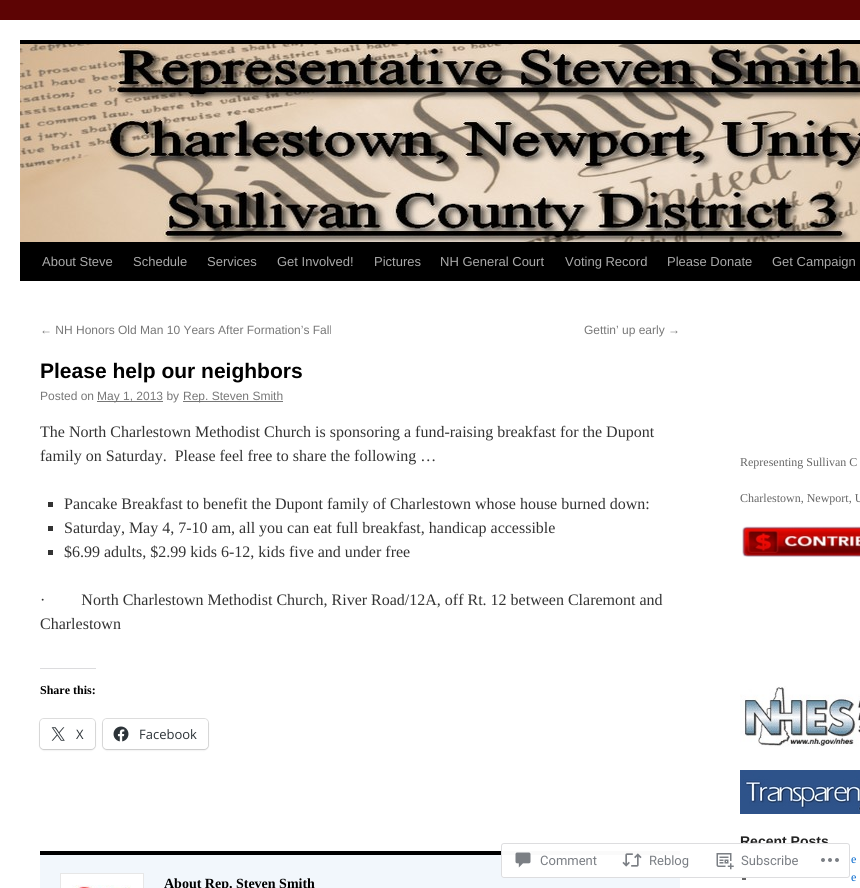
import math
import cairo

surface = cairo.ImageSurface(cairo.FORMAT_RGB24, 860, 888)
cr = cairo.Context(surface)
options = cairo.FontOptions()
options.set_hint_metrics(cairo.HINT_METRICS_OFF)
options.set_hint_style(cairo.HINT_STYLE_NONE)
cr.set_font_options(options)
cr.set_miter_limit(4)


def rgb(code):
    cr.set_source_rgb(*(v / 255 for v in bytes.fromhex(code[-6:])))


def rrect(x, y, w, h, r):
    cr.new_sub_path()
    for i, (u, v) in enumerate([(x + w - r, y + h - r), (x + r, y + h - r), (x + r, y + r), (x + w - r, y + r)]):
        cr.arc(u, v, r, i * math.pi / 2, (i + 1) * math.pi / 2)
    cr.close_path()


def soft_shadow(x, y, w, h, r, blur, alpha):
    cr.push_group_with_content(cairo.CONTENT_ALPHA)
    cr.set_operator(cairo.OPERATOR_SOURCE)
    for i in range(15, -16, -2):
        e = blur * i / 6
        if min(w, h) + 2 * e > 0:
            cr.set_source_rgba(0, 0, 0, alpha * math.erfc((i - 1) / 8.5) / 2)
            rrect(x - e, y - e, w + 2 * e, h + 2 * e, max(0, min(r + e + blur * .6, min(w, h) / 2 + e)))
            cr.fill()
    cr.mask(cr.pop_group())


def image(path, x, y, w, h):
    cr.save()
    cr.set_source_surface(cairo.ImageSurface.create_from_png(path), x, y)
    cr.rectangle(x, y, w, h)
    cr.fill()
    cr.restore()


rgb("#5d0404")
cr.paint()
for x, y, w, h, color in [
    (0, 20, 860, 868, "#ffffff"),
    (20, 40, 840, 4, "#000000"),
    (20, 242, 840, 39, "#000000"),
]:
    rgb(color)
    cr.rectangle(x, y, w, h)
    cr.fill()
image("img/1.png", 20, 44, 840, 198)
for x, y, w, h, color in [
    (97, 401, 66, 1, "#777777"),
    (183, 401, 100, 1, "#777777"),
    (48, 502, 5, 5, "#333333"),
    (48, 526, 5, 5, "#333333"),
    (48, 550, 5, 5, "#333333"),
    (40, 668, 56, 1, "#dcdcde"),
]:
    rgb(color)
    cr.rectangle(x, y, w, h)
    cr.fill()
rrect(39.5, 718.5, 56, 31, 4.5)
rgb("#e0e0e0")
cr.set_line_width(1)
cr.stroke()
rgb("#000000")
soft_shadow(40, 720, 55, 30, 4, 1, 0.12)
rgb("#ffffff")
rrect(40, 719, 55, 30, 4)
cr.fill()
image("img/2.png", 51, 727, 14, 14)
rrect(102.5, 718.5, 106, 31, 4.5)
rgb("#e0e0e0")
cr.stroke()
rgb("#000000")
soft_shadow(103, 720, 105, 30, 4, 1, 0.12)
rgb("#ffffff")
rrect(103, 719, 105, 30, 4)
cr.fill()
image("img/3.png", 113, 726, 16, 16)
rgb("#f2f7fc")
cr.rectangle(40, 855, 640, 33)
cr.fill()
rgb("#000000")
cr.rectangle(40, 851, 640, 4)
cr.fill()
rgb("#ffffff")
cr.rectangle(60.5, 873.5, 83, 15)
cr.fill_preserve()
rgb("#e7e7e7")
cr.stroke()
image("img/4.png", 72, 885, 59, 3)
image("img/5.png", 742, 526, 118, 31)
image("img/6.png", 740, 686, 120, 61)
image("img/7.png", 740, 770, 120, 44)
rgb("#666666")
cr.rectangle(742, 858, 4, 4)
cr.fill()
cr.rectangle(742, 876, 4, 4)
cr.fill()
cr.select_font_face("Liberation Sans")
cr.set_font_size(13)
rgb("#aaaaaa")
for x, y, s in [
    (42, 266, "About Steve"),
    (133, 266, "Schedule"),
    (207, 266, "Services"),
    (277, 266, "Get Involved!"),
    (374, 266, "Pictures"),
    (440, 266, "NH General Court"),
    (565, 266, "Voting Record"),
    (667, 266, "Please Donate"),
    (772, 266, "Get Campaign"),
]:
    cr.move_to(x, y)
    cr.show_text(s)
cr.set_font_size(12)
rgb("#777777")
cr.move_to(40, 334)
cr.show_text("← NH Honors Old Man 10 Years After Formation’s Fall")
cr.move_to(584, 334)
cr.show_text("Gettin’ up early →")
cr.select_font_face("Liberation Sans", cairo.FONT_SLANT_NORMAL, cairo.FONT_WEIGHT_BOLD)
cr.set_font_size(21)
rgb("#000000")
cr.move_to(40, 378)
cr.show_text("Please help our neighbors")
cr.select_font_face("Liberation Sans")
cr.set_font_size(12)
rgb("#777777")
for x, y, s in [
    (40, 400, "Posted on"),
    (97, 400, "May 1, 2013 by"),
    (183, 400, "Rep. Steven Smith"),
]:
    cr.move_to(x, y)
    cr.show_text(s)
cr.select_font_face("Liberation Serif")
cr.set_font_size(16)
rgb("#333333")
for x, y, s in [
    (40, 437, "The North Charlestown Methodist Church is sponsoring a fund-raising breakfast for the Dupont"),
    (40, 461, "family on Saturday.  Please feel free to share the following …"),
    (64, 509, "Pancake Breakfast to benefit the Dupont family of Charlestown whose house burned down:"),
    (64, 533, "Saturday, May 4, 7-10 am, all you can eat full breakfast, handicap accessible"),
    (64, 557, "$6.99 adults, $2.99 kids 6-12, kids five and under free"),
    (40, 605, "·         North Charlestown Methodist Church, River Road/12A, off Rt. 12 between Claremont and"),
    (40, 629, "Charlestown"),
]:
    cr.move_to(x, y)
    cr.show_text(s)
cr.select_font_face("Liberation Serif", cairo.FONT_SLANT_NORMAL, cairo.FONT_WEIGHT_BOLD)
cr.set_font_size(12)
rgb("#000000")
cr.move_to(40, 694)
cr.show_text("Share this:")
cr.select_font_face("Open Sans")
cr.set_font_size(13)
rgb("#2c3338")
cr.move_to(76, 739)
cr.show_text("X")
cr.move_to(139, 739)
cr.show_text("Facebook")
cr.select_font_face("Liberation Serif", cairo.FONT_SLANT_NORMAL, cairo.FONT_WEIGHT_BOLD)
cr.set_font_size(14)
rgb("#000000")
cr.move_to(164, 888)
cr.show_text("About Rep. Steven Smith")
cr.select_font_face("Liberation Serif")
cr.set_font_size(12)
rgb("#666666")
cr.move_to(740, 466)
cr.show_text("Representing Sullivan C")
cr.move_to(740, 502)
cr.show_text("Charlestown, Newport, U")
cr.select_font_face("Liberation Sans", cairo.FONT_SLANT_NORMAL, cairo.FONT_WEIGHT_BOLD)
cr.set_font_size(14)
rgb("#222222")
cr.move_to(740, 846)
cr.show_text("Recent Posts")
cr.select_font_face("Liberation Serif")
cr.set_font_size(12)
rgb("#0066cc")
cr.move_to(851, 863)
cr.show_text("e")
cr.move_to(851, 881)
cr.show_text("e")
cr.set_source_rgba(1, 1, 1, 0.98)
rrect(501, 843, 349, 35, 3)
cr.fill()
rrect(501.5, 843.5, 348, 34, 2.5)
cr.set_source_rgba(0.863, 0.863, 0.871, 0.98)
cr.stroke()
image("img/8.png", 515, 852, 16, 16)
cr.select_font_face("Roboto")
cr.set_font_size(13)
rgb("#7a7e84")
cr.move_to(540, 865)
cr.show_text("Comment")
image("img/9.png", 622, 853, 20, 14)
cr.move_to(649, 865)
cr.show_text("Reblog")
image("img/10.png", 716, 853, 18, 17)
cr.move_to(741, 865)
cr.show_text("Subscribe")
image("img/11.png", 821, 858, 18, 4)
surface.write_to_png("page.png")
